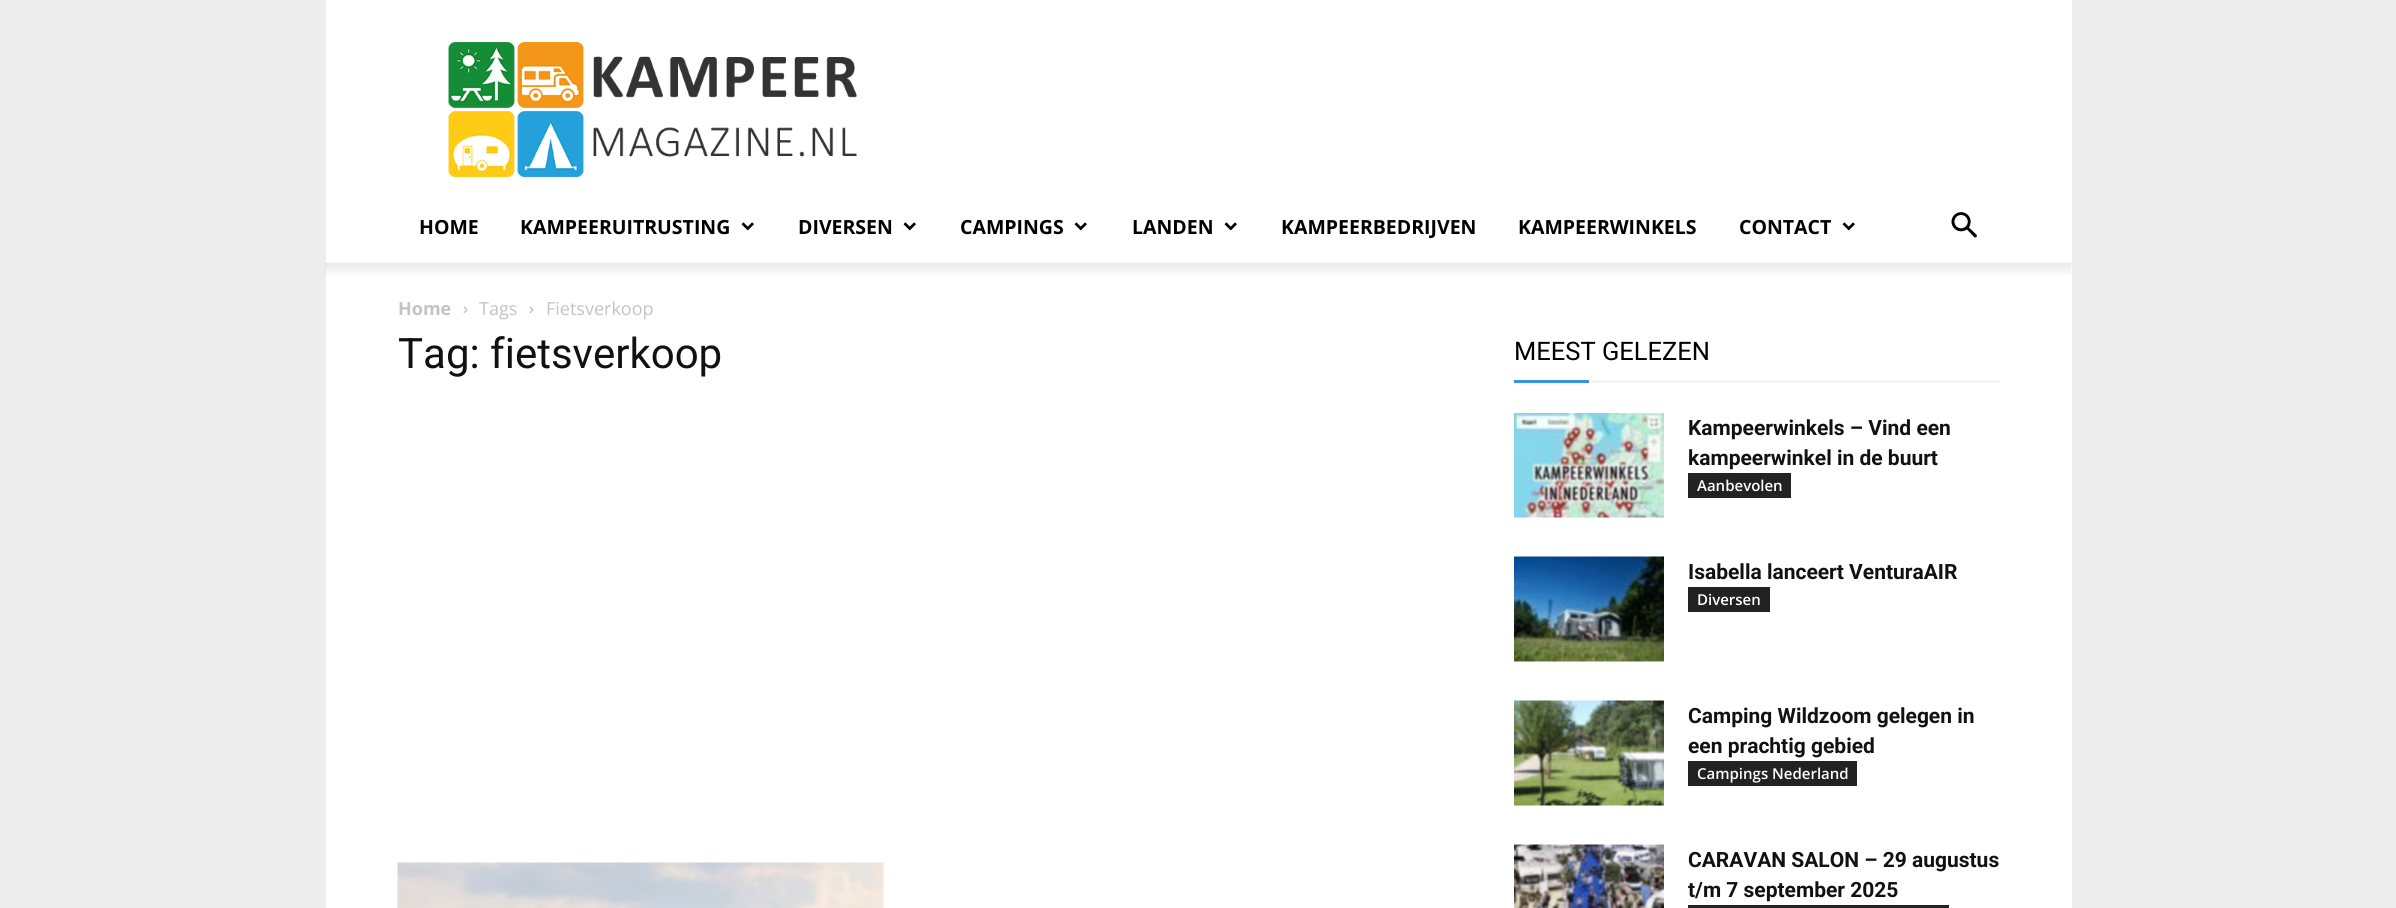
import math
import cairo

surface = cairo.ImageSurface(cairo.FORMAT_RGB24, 2396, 908)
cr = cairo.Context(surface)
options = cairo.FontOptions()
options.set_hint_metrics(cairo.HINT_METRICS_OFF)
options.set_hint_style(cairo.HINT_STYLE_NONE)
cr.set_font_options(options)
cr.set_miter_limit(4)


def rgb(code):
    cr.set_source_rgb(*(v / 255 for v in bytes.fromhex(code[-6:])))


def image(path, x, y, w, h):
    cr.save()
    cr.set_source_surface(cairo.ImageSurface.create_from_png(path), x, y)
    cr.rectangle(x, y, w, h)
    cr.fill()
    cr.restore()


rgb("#ededed")
cr.paint()
rgb("#ffffff")
cr.rectangle(326, 0, 1746, 263)
cr.fill()
image("img/1.png", 448, 42, 409, 135)
image("img/2.png", 741, 222, 13, 9)
image("img/2.png", 903, 222, 13, 9)
image("img/2.png", 1074, 222, 13, 9)
image("img/2.png", 1224, 222, 13, 9)
image("img/2.png", 1842, 222, 13, 9)
image("img/3.png", 1951, 212, 26, 26)
cr.rectangle(326, 263, 1746, 645)
cr.fill()
image("img/4.png", 325, 262, 1747, 13)
image("img/5.png", 463, 306, 5, 8)
image("img/5.png", 529, 306, 5, 8)
image("img/6.png", 397, 862, 487, 46)
rgb("#3498db")
cr.rectangle(1514, 380, 75, 3)
cr.fill()
rgb("#f5f5f5")
cr.rectangle(1589, 380, 411, 3)
cr.fill()
image("img/7.png", 1514, 413, 150, 105)
rgb("#222222")
cr.rectangle(1688, 473, 103, 25)
cr.fill()
image("img/8.png", 1514, 556, 150, 106)
cr.rectangle(1688, 587, 82, 25)
cr.fill()
image("img/9.png", 1514, 700, 150, 106)
cr.rectangle(1688, 761, 169, 25)
cr.fill()
image("img/10.png", 1514, 844, 150, 64)
cr.rectangle(1688, 905, 261, 3)
cr.fill()
cr.select_font_face("Open Sans", cairo.FONT_SLANT_NORMAL, cairo.FONT_WEIGHT_BOLD)
cr.set_font_size(19.5)
rgb("#000000")
for x, y, s in [
    (419, 234, "HOME"),
    (520, 234, "KAMPEERUITRUSTING"),
    (798, 234, "DIVERSEN"),
    (960, 234, "CAMPINGS"),
    (1132, 234, "LANDEN"),
    (1281, 234, "KAMPEERBEDRIJVEN"),
    (1518, 234, "KAMPEERWINKELS"),
    (1739, 234, "CONTACT"),
]:
    cr.move_to(x, y)
    cr.show_text(s)
cr.set_font_size(18)
rgb("#c3c3c3")
cr.move_to(398, 315)
cr.show_text("Home")
cr.select_font_face("Open Sans")
cr.move_to(479, 315)
cr.show_text("Tags")
cr.move_to(546, 315)
cr.show_text("Fietsverkoop")
cr.select_font_face("Roboto")
cr.set_font_size(42)
rgb("#111111")
cr.move_to(398, 368)
cr.show_text("Tag: fietsverkoop")
cr.set_font_size(25.5)
rgb("#000000")
cr.move_to(1514, 360)
cr.show_text("MEEST GELEZEN")
cr.select_font_face("Roboto", cairo.FONT_SLANT_NORMAL, cairo.FONT_WEIGHT_BOLD)
cr.set_font_size(21)
rgb("#111111")
cr.move_to(1688, 435)
cr.show_text("Kampeerwinkels – Vind een")
cr.move_to(1688, 465)
cr.show_text("kampeerwinkel in de buurt")
cr.select_font_face("Open Sans SemiBold")
cr.set_font_size(15)
rgb("#ffffff")
cr.move_to(1697, 491)
cr.show_text("Aanbevolen")
cr.select_font_face("Roboto", cairo.FONT_SLANT_NORMAL, cairo.FONT_WEIGHT_BOLD)
cr.set_font_size(21)
rgb("#111111")
cr.move_to(1688, 579)
cr.show_text("Isabella lanceert VenturaAIR")
cr.select_font_face("Open Sans SemiBold")
cr.set_font_size(15)
rgb("#ffffff")
cr.move_to(1697, 605)
cr.show_text("Diversen")
cr.select_font_face("Roboto", cairo.FONT_SLANT_NORMAL, cairo.FONT_WEIGHT_BOLD)
cr.set_font_size(21)
rgb("#111111")
cr.move_to(1688, 723)
cr.show_text("Camping Wildzoom gelegen in")
cr.move_to(1688, 753)
cr.show_text("een prachtig gebied")
cr.select_font_face("Open Sans SemiBold")
cr.set_font_size(15)
rgb("#ffffff")
cr.move_to(1697, 779)
cr.show_text("Campings Nederland")
cr.select_font_face("Roboto", cairo.FONT_SLANT_NORMAL, cairo.FONT_WEIGHT_BOLD)
cr.set_font_size(21)
rgb("#111111")
cr.move_to(1688, 867)
cr.show_text("CARAVAN SALON – 29 augustus")
cr.move_to(1688, 897)
cr.show_text("t/m 7 september 2025")
surface.write_to_png("page.png")
